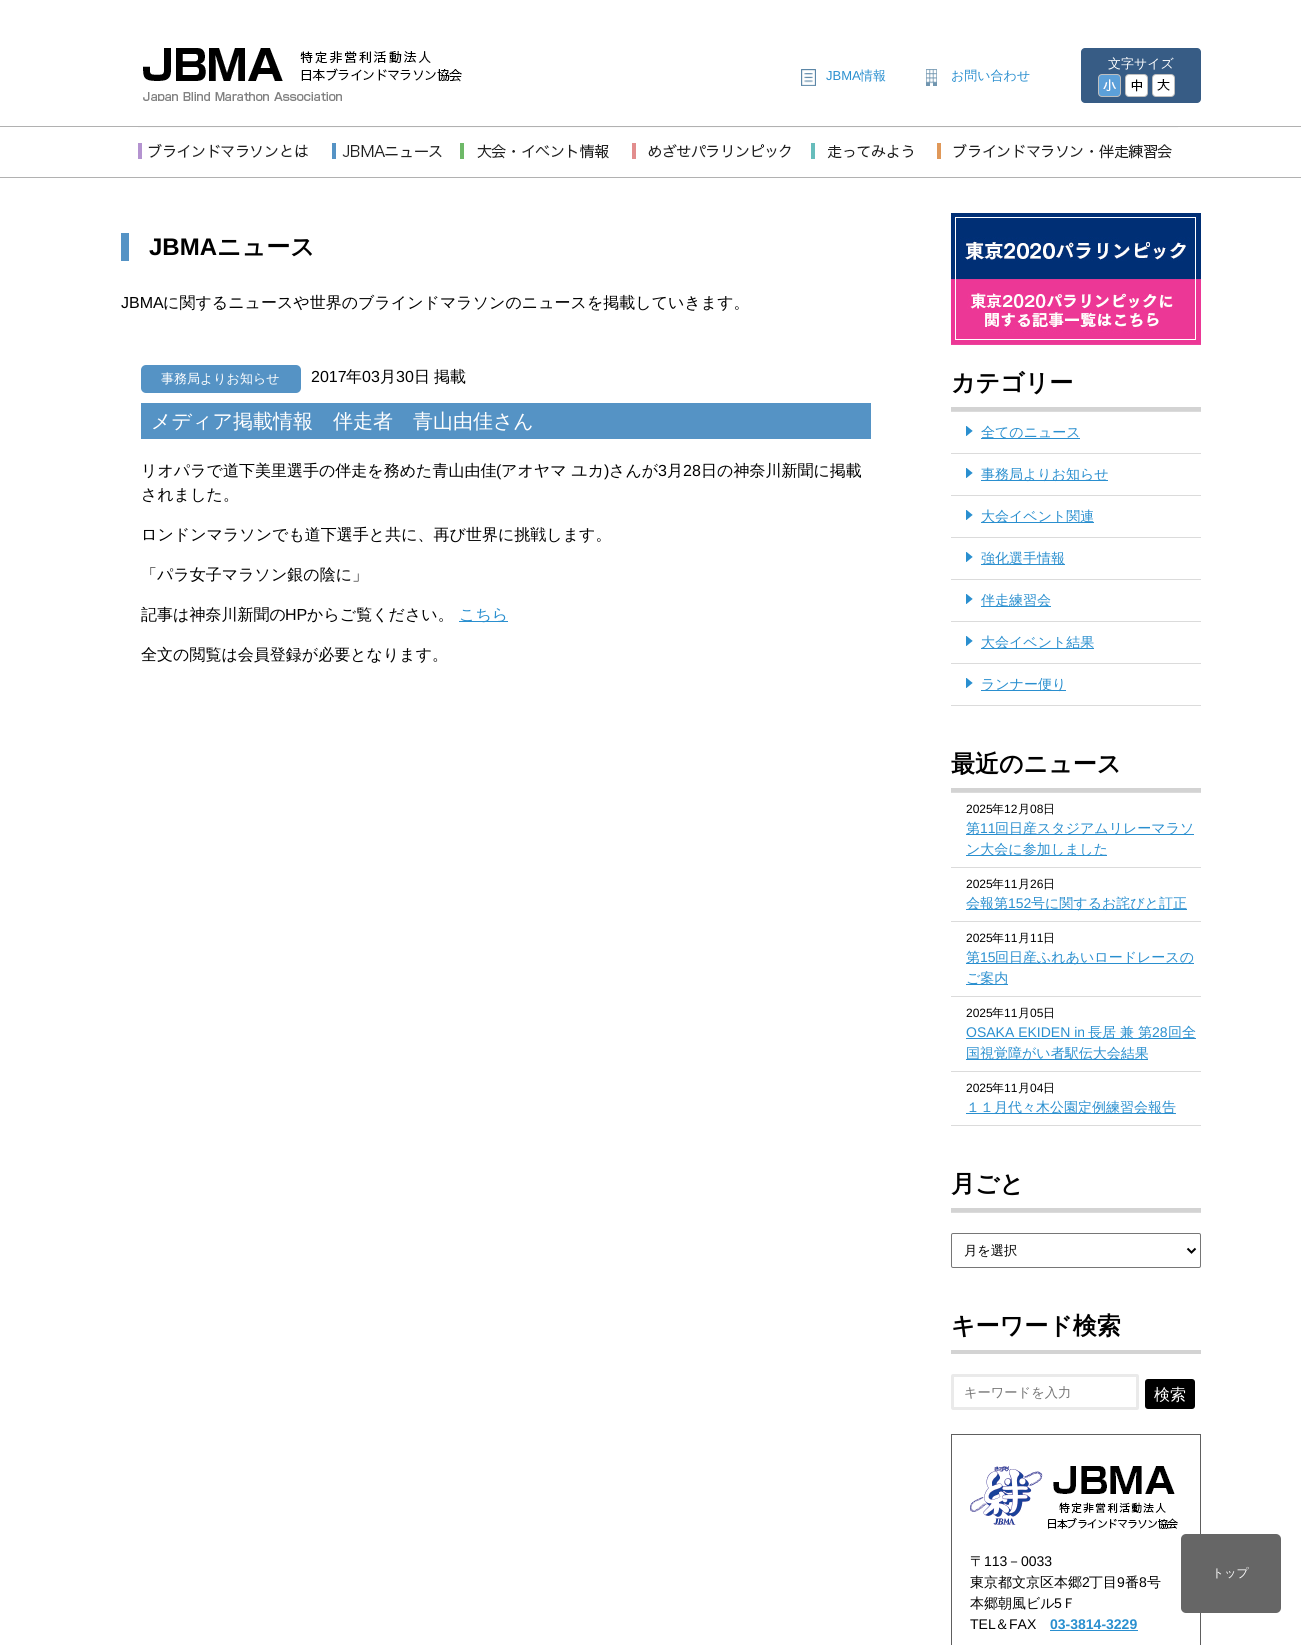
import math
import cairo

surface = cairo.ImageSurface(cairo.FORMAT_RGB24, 1301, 1645)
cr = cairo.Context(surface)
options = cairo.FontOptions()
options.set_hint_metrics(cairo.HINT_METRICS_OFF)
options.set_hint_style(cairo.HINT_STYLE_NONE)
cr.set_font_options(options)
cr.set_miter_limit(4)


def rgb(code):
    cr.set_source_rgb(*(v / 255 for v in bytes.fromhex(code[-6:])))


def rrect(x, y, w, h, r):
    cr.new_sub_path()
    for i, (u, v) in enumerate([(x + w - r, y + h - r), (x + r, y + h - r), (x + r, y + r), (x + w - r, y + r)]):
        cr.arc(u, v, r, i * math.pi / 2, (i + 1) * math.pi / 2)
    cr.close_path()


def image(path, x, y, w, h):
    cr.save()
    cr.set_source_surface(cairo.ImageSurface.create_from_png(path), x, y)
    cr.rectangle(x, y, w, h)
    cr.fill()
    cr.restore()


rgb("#ffffff")
cr.paint()
image("img/1.png", 143, 48, 319, 53)
rgb("#375c85")
rrect(1081, 48, 120, 55, 4)
cr.fill()
image("img/2.png", 1098, 74, 23, 23)
image("img/3.png", 1125, 74, 23, 23)
image("img/4.png", 1152, 74, 23, 23)
image("img/5.png", 801, 69, 15, 17)
image("img/6.png", 926, 69, 11, 17)
rgb("#b1b1b1")
cr.rectangle(0, 126, 1301, 1)
cr.fill()
cr.rectangle(0, 177, 1301, 1)
cr.fill()
image("img/7.png", 138, 127, 194, 32)
image("img/8.png", 332, 127, 128, 32)
image("img/9.png", 460, 127, 172, 32)
image("img/10.png", 632, 127, 179, 32)
image("img/11.png", 811, 127, 126, 32)
image("img/12.png", 937, 127, 241, 32)
rgb("#5593c5")
cr.rectangle(121, 233, 8, 28)
cr.fill()
rrect(141, 365, 160, 28, 5)
cr.fill()
cr.rectangle(141, 403, 730, 36)
cr.fill()
rgb("#2a8fcf")
cr.rectangle(459, 621, 49, 1)
cr.fill()
image("img/13.png", 951, 213, 250, 132)
rgb("#d3d3d3")
cr.rectangle(951, 407, 250, 4)
cr.fill()
rgb("#dbdbdb")
cr.rectangle(951, 411, 250, 1)
cr.fill()
image("img/14.png", 966, 426, 7, 10)
cr.rectangle(951, 453, 250, 1)
cr.fill()
rgb("#2a8fcf")
cr.rectangle(981, 438, 99, 1)
cr.fill()
image("img/14.png", 966, 468, 7, 10)
rgb("#dbdbdb")
cr.rectangle(951, 495, 250, 1)
cr.fill()
rgb("#2a8fcf")
cr.rectangle(981, 480, 127, 1)
cr.fill()
image("img/14.png", 966, 510, 7, 10)
rgb("#dbdbdb")
cr.rectangle(951, 537, 250, 1)
cr.fill()
rgb("#2a8fcf")
cr.rectangle(981, 522, 113, 1)
cr.fill()
image("img/14.png", 966, 552, 7, 10)
rgb("#dbdbdb")
cr.rectangle(951, 579, 250, 1)
cr.fill()
rgb("#2a8fcf")
cr.rectangle(981, 564, 84, 1)
cr.fill()
image("img/14.png", 966, 594, 7, 10)
rgb("#dbdbdb")
cr.rectangle(951, 621, 250, 1)
cr.fill()
rgb("#2a8fcf")
cr.rectangle(981, 606, 70, 1)
cr.fill()
image("img/14.png", 966, 636, 7, 10)
rgb("#dbdbdb")
cr.rectangle(951, 663, 250, 1)
cr.fill()
rgb("#2a8fcf")
cr.rectangle(981, 648, 113, 1)
cr.fill()
image("img/14.png", 966, 678, 7, 10)
for x, y, w, h, color in [
    (951, 705, 250, 1, "#dbdbdb"),
    (981, 690, 85, 1, "#2a8fcf"),
    (951, 788, 250, 4, "#d3d3d3"),
    (951, 792, 250, 1, "#dbdbdb"),
    (951, 867, 250, 1, "#dbdbdb"),
    (966, 834, 228, 1, "#2a8fcf"),
    (966, 855, 141, 1, "#2a8fcf"),
    (951, 921, 250, 1, "#dbdbdb"),
    (966, 909, 221, 1, "#2a8fcf"),
    (951, 996, 250, 1, "#dbdbdb"),
    (966, 963, 228, 1, "#2a8fcf"),
    (966, 984, 42, 1, "#2a8fcf"),
    (951, 1071, 250, 1, "#dbdbdb"),
    (966, 1038, 230, 1, "#2a8fcf"),
    (966, 1059, 182, 1, "#2a8fcf"),
    (951, 1125, 250, 1, "#dbdbdb"),
    (966, 1113, 210, 1, "#2a8fcf"),
    (951, 1208, 250, 4, "#d3d3d3"),
    (951, 1212, 250, 1, "#dbdbdb"),
]:
    rgb(color)
    cr.rectangle(x, y, w, h)
    cr.fill()
rrect(951.5, 1233.5, 249, 34, 1.5)
rgb("#767676")
cr.set_line_width(1)
cr.stroke()
cr.new_path()
cr.move_to(1187.5, 1248.5)
cr.line_to(1191.5, 1252.5)
cr.line_to(1195.5, 1248.5)
rgb("#000000")
cr.set_line_width(2)
cr.stroke()
rgb("#d3d3d3")
cr.rectangle(951, 1350, 250, 4)
cr.fill()
rrect(952.5, 1375.5, 185, 33, 0.5)
rgb("#eaeaea")
cr.set_line_width(3)
cr.stroke()
rgb("#000000")
rrect(1145, 1379, 50, 30, 3)
cr.fill()
cr.rectangle(951.5, 1434.5, 249, 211)
rgb("#5e5e5e")
cr.set_line_width(1)
cr.stroke()
image("img/15.png", 970, 1466, 73, 59)
image("img/16.png", 1048, 1466, 130, 64)
rgb("#2a8fcf")
cr.rectangle(1050, 1630, 88, 1)
cr.fill()
rgb("#666666")
rrect(1181, 1534, 100, 79, 5)
cr.fill()
cr.select_font_face("WenQuanYi Zen Hei Medium")
cr.set_font_size(13)
rgb("#ffffff")
cr.move_to(1108, 68)
cr.show_text("文字サイズ")
cr.select_font_face("Liberation Sans")
rgb("#2a8fcf")
cr.move_to(826, 80)
cr.show_text("JBMA")
cr.select_font_face("WenQuanYi Zen Hei Medium")
cr.move_to(860, 80)
cr.show_text("情報")
cr.move_to(951, 80)
cr.show_text("お問い合わせ")
cr.select_font_face("Liberation Sans", cairo.FONT_SLANT_NORMAL, cairo.FONT_WEIGHT_BOLD)
cr.set_font_size(24)
rgb("#000000")
cr.move_to(149, 255)
cr.show_text("JBMA")
cr.select_font_face("WenQuanYi Zen Hei", cairo.FONT_SLANT_NORMAL, cairo.FONT_WEIGHT_BOLD)
cr.move_to(217, 255)
cr.show_text("ニュース")
cr.select_font_face("Liberation Sans")
cr.set_font_size(16)
cr.move_to(121, 308)
cr.show_text("JBMA")
cr.select_font_face("WenQuanYi Zen Hei Medium")
cr.move_to(163, 308)
cr.show_text("に関するニュースや世界のブラインドマラソンのニュースを掲載していきます。")
cr.set_font_size(13)
rgb("#ffffff")
cr.move_to(161, 383)
cr.show_text("事務局よりお知らせ")
cr.select_font_face("Liberation Sans")
cr.set_font_size(16)
rgb("#000000")
cr.move_to(311, 382)
cr.show_text("2017")
cr.select_font_face("WenQuanYi Zen Hei Medium")
cr.move_to(346, 382)
cr.show_text("年")
cr.select_font_face("Liberation Sans")
cr.move_to(362, 382)
cr.show_text("03")
cr.select_font_face("WenQuanYi Zen Hei Medium")
cr.move_to(380, 382)
cr.show_text("月")
cr.select_font_face("Liberation Sans")
cr.move_to(396, 382)
cr.show_text("30")
cr.select_font_face("WenQuanYi Zen Hei Medium")
cr.move_to(414, 382)
cr.show_text("日")
cr.move_to(434, 382)
cr.show_text("掲載")
cr.set_font_size(20)
rgb("#ffffff")
cr.move_to(151, 428)
cr.show_text("メディア掲載情報　伴走者　青山由佳さん")
cr.set_font_size(16)
rgb("#000000")
cr.move_to(141, 476)
cr.show_text("リオパラで道下美里選手の伴走を務めた青山由佳")
cr.select_font_face("Liberation Sans")
cr.move_to(496, 476)
cr.show_text("(")
cr.select_font_face("WenQuanYi Zen Hei Medium")
cr.move_to(501, 476)
cr.show_text("アオヤマ ユカ")
cr.select_font_face("Liberation Sans")
cr.move_to(604, 476)
cr.show_text(")")
cr.select_font_face("WenQuanYi Zen Hei Medium")
cr.move_to(609, 476)
cr.show_text("さんが")
cr.select_font_face("Liberation Sans")
cr.move_to(658, 476)
cr.show_text("3")
cr.select_font_face("WenQuanYi Zen Hei Medium")
cr.move_to(667, 476)
cr.show_text("月")
cr.select_font_face("Liberation Sans")
cr.move_to(683, 476)
cr.show_text("28")
cr.select_font_face("WenQuanYi Zen Hei Medium")
for x, y, s in [
    (701, 476, "日の神奈川新聞に掲載"),
    (141, 500, "されました。"),
    (141, 540, "ロンドンマラソンでも道下選手と共に、再び世界に挑戦します。"),
    (141, 580, "「パラ女子マラソン銀の陰に」"),
    (141, 620, "記事は神奈川新聞の"),
]:
    cr.move_to(x, y)
    cr.show_text(s)
cr.select_font_face("Liberation Sans")
cr.move_to(285, 620)
cr.show_text("HP")
cr.select_font_face("WenQuanYi Zen Hei Medium")
cr.move_to(307, 620)
cr.show_text("からご覧ください。")
rgb("#2a8fcf")
cr.move_to(459, 620)
cr.show_text("こちら")
rgb("#000000")
cr.move_to(141, 660)
cr.show_text("全文の閲覧は会員登録が必要となります。")
cr.select_font_face("WenQuanYi Zen Hei", cairo.FONT_SLANT_NORMAL, cairo.FONT_WEIGHT_BOLD)
cr.set_font_size(24)
cr.move_to(951, 391)
cr.show_text("カテゴリー")
cr.select_font_face("WenQuanYi Zen Hei Medium")
cr.set_font_size(14)
rgb("#2a8fcf")
for x, y, s in [
    (981, 437, "全てのニュース"),
    (981, 479, "事務局よりお知らせ"),
    (981, 521, "大会イベント関連"),
    (981, 563, "強化選手情報"),
    (981, 605, "伴走練習会"),
    (981, 647, "大会イベント結果"),
    (981, 689, "ランナー便り"),
]:
    cr.move_to(x, y)
    cr.show_text(s)
cr.select_font_face("WenQuanYi Zen Hei", cairo.FONT_SLANT_NORMAL, cairo.FONT_WEIGHT_BOLD)
cr.set_font_size(24)
rgb("#000000")
cr.move_to(951, 772)
cr.show_text("最近のニュース")
cr.select_font_face("Liberation Sans")
cr.set_font_size(12)
cr.move_to(966, 813)
cr.show_text("2025")
cr.select_font_face("WenQuanYi Zen Hei Medium")
cr.move_to(992, 813)
cr.show_text("年")
cr.select_font_face("Liberation Sans")
cr.move_to(1004, 813)
cr.show_text("12")
cr.select_font_face("WenQuanYi Zen Hei Medium")
cr.move_to(1018, 813)
cr.show_text("月")
cr.select_font_face("Liberation Sans")
cr.move_to(1030, 813)
cr.show_text("08")
cr.select_font_face("WenQuanYi Zen Hei Medium")
cr.move_to(1043, 813)
cr.show_text("日")
cr.set_font_size(14)
rgb("#2a8fcf")
cr.move_to(966, 833)
cr.show_text("第")
cr.select_font_face("Liberation Sans")
cr.move_to(980, 833)
cr.show_text("11")
cr.select_font_face("WenQuanYi Zen Hei Medium")
cr.move_to(995, 833)
cr.show_text("回日産スタジアムリレーマラソ")
cr.move_to(966, 854)
cr.show_text("ン大会に参加しました")
cr.select_font_face("Liberation Sans")
cr.set_font_size(12)
rgb("#000000")
cr.move_to(966, 888)
cr.show_text("2025")
cr.select_font_face("WenQuanYi Zen Hei Medium")
cr.move_to(992, 888)
cr.show_text("年")
cr.select_font_face("Liberation Sans")
cr.move_to(1004, 888)
cr.show_text("11")
cr.select_font_face("WenQuanYi Zen Hei Medium")
cr.move_to(1018, 888)
cr.show_text("月")
cr.select_font_face("Liberation Sans")
cr.move_to(1030, 888)
cr.show_text("26")
cr.select_font_face("WenQuanYi Zen Hei Medium")
cr.move_to(1043, 888)
cr.show_text("日")
cr.set_font_size(14)
rgb("#2a8fcf")
cr.move_to(966, 908)
cr.show_text("会報第")
cr.select_font_face("Liberation Sans")
cr.move_to(1008, 908)
cr.show_text("152")
cr.select_font_face("WenQuanYi Zen Hei Medium")
cr.move_to(1031, 908)
cr.show_text("号に関するお詫びと訂正")
cr.select_font_face("Liberation Sans")
cr.set_font_size(12)
rgb("#000000")
cr.move_to(966, 942)
cr.show_text("2025")
cr.select_font_face("WenQuanYi Zen Hei Medium")
cr.move_to(992, 942)
cr.show_text("年")
cr.select_font_face("Liberation Sans")
cr.move_to(1004, 942)
cr.show_text("11")
cr.select_font_face("WenQuanYi Zen Hei Medium")
cr.move_to(1018, 942)
cr.show_text("月")
cr.select_font_face("Liberation Sans")
cr.move_to(1030, 942)
cr.show_text("11")
cr.select_font_face("WenQuanYi Zen Hei Medium")
cr.move_to(1043, 942)
cr.show_text("日")
cr.set_font_size(14)
rgb("#2a8fcf")
cr.move_to(966, 962)
cr.show_text("第")
cr.select_font_face("Liberation Sans")
cr.move_to(980, 962)
cr.show_text("15")
cr.select_font_face("WenQuanYi Zen Hei Medium")
cr.move_to(995, 962)
cr.show_text("回日産ふれあいロードレースの")
cr.move_to(966, 983)
cr.show_text("ご案内")
cr.select_font_face("Liberation Sans")
cr.set_font_size(12)
rgb("#000000")
cr.move_to(966, 1017)
cr.show_text("2025")
cr.select_font_face("WenQuanYi Zen Hei Medium")
cr.move_to(992, 1017)
cr.show_text("年")
cr.select_font_face("Liberation Sans")
cr.move_to(1004, 1017)
cr.show_text("11")
cr.select_font_face("WenQuanYi Zen Hei Medium")
cr.move_to(1018, 1017)
cr.show_text("月")
cr.select_font_face("Liberation Sans")
cr.move_to(1030, 1017)
cr.show_text("05")
cr.select_font_face("WenQuanYi Zen Hei Medium")
cr.move_to(1043, 1017)
cr.show_text("日")
cr.select_font_face("Liberation Sans")
cr.set_font_size(14)
rgb("#2a8fcf")
cr.move_to(966, 1037)
cr.show_text("OSAKA EKIDEN in")
cr.select_font_face("WenQuanYi Zen Hei Medium")
for x, y, s in [
    (1088, 1037, "長居"),
    (1120, 1037, "兼"),
    (1138, 1037, "第"),
]:
    cr.move_to(x, y)
    cr.show_text(s)
cr.select_font_face("Liberation Sans")
cr.move_to(1152, 1037)
cr.show_text("28")
cr.select_font_face("WenQuanYi Zen Hei Medium")
cr.move_to(1168, 1037)
cr.show_text("回全")
cr.move_to(966, 1058)
cr.show_text("国視覚障がい者駅伝大会結果")
cr.select_font_face("Liberation Sans")
cr.set_font_size(12)
rgb("#000000")
cr.move_to(966, 1092)
cr.show_text("2025")
cr.select_font_face("WenQuanYi Zen Hei Medium")
cr.move_to(992, 1092)
cr.show_text("年")
cr.select_font_face("Liberation Sans")
cr.move_to(1004, 1092)
cr.show_text("11")
cr.select_font_face("WenQuanYi Zen Hei Medium")
cr.move_to(1018, 1092)
cr.show_text("月")
cr.select_font_face("Liberation Sans")
cr.move_to(1030, 1092)
cr.show_text("04")
cr.select_font_face("WenQuanYi Zen Hei Medium")
cr.move_to(1043, 1092)
cr.show_text("日")
cr.set_font_size(14)
rgb("#2a8fcf")
cr.move_to(966, 1112)
cr.show_text("１１月代々木公園定例練習会報告")
cr.select_font_face("WenQuanYi Zen Hei", cairo.FONT_SLANT_NORMAL, cairo.FONT_WEIGHT_BOLD)
cr.set_font_size(24)
rgb("#000000")
cr.move_to(951, 1192)
cr.show_text("月ごと")
cr.select_font_face("WenQuanYi Zen Hei Medium")
cr.set_font_size(13.25)
cr.move_to(964, 1255)
cr.show_text("月を選択")
cr.select_font_face("WenQuanYi Zen Hei", cairo.FONT_SLANT_NORMAL, cairo.FONT_WEIGHT_BOLD)
cr.set_font_size(24)
cr.move_to(951, 1334)
cr.show_text("キーワード検索")
cr.select_font_face("WenQuanYi Zen Hei Medium")
cr.set_font_size(13.25)
rgb("#757575")
cr.move_to(964, 1397)
cr.show_text("キーワードを入力")
cr.set_font_size(16)
rgb("#ffffff")
cr.move_to(1154, 1400)
cr.show_text("検索")
cr.set_font_size(14)
rgb("#000000")
cr.move_to(970, 1566)
cr.show_text("〒")
cr.select_font_face("Liberation Sans")
cr.move_to(984, 1566)
cr.show_text("113")
cr.select_font_face("WenQuanYi Zen Hei Medium")
cr.move_to(1007, 1566)
cr.show_text("－")
cr.select_font_face("Liberation Sans")
cr.move_to(1021, 1566)
cr.show_text("0033")
cr.select_font_face("WenQuanYi Zen Hei Medium")
cr.move_to(970, 1587)
cr.show_text("東京都文京区本郷")
cr.select_font_face("Liberation Sans")
cr.move_to(1082, 1587)
cr.show_text("2")
cr.select_font_face("WenQuanYi Zen Hei Medium")
cr.move_to(1089, 1587)
cr.show_text("丁目")
cr.select_font_face("Liberation Sans")
cr.move_to(1117, 1587)
cr.show_text("9")
cr.select_font_face("WenQuanYi Zen Hei Medium")
cr.move_to(1125, 1587)
cr.show_text("番")
cr.select_font_face("Liberation Sans")
cr.move_to(1139, 1587)
cr.show_text("8")
cr.select_font_face("WenQuanYi Zen Hei Medium")
cr.move_to(1147, 1587)
cr.show_text("号")
cr.move_to(970, 1608)
cr.show_text("本郷朝風ビル")
cr.select_font_face("Liberation Sans")
cr.move_to(1054, 1608)
cr.show_text("5")
cr.select_font_face("WenQuanYi Zen Hei Medium")
cr.move_to(1062, 1608)
cr.show_text("Ｆ")
cr.select_font_face("Liberation Sans")
cr.move_to(970, 1629)
cr.show_text("TEL")
cr.select_font_face("WenQuanYi Zen Hei Medium")
cr.move_to(995, 1629)
cr.show_text("＆")
cr.select_font_face("Liberation Sans")
cr.move_to(1009, 1629)
cr.show_text("FAX")
cr.select_font_face("Liberation Sans", cairo.FONT_SLANT_NORMAL, cairo.FONT_WEIGHT_BOLD)
rgb("#2a8fcf")
cr.move_to(1050, 1629)
cr.show_text("03-3814-3229")
cr.select_font_face("WenQuanYi Zen Hei Medium")
cr.set_font_size(12)
rgb("#ffffff")
cr.move_to(1212, 1577)
cr.show_text("トップ")
surface.write_to_png("page.png")
